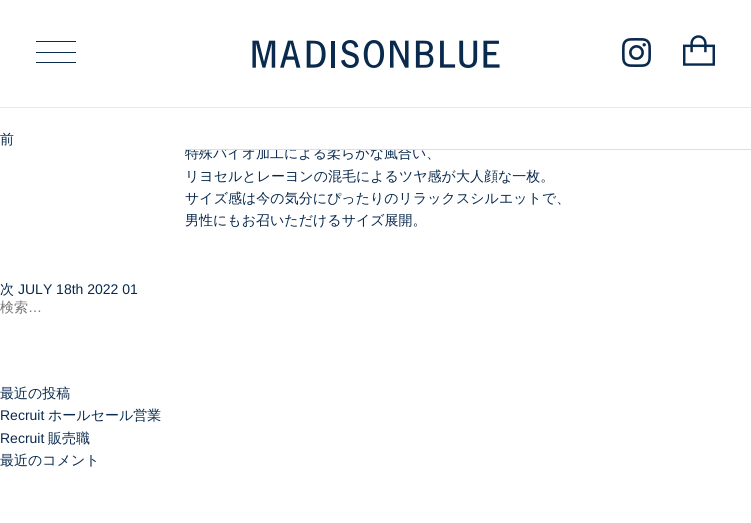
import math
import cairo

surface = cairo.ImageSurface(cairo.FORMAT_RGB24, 751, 523)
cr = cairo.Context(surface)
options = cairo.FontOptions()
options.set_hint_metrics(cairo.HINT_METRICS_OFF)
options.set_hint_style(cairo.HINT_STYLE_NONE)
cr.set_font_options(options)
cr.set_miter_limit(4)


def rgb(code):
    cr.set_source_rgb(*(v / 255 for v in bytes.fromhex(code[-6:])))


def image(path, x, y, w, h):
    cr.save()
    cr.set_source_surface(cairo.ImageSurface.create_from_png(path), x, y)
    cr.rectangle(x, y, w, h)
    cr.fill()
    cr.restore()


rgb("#ffffff")
cr.paint()
for x, y, w, h, color in [
    (0, 107, 751, 1, "#e8e8e8"),
    (36, 41, 40, 1, "#09294d"),
    (36, 52, 40, 1, "#09294d"),
    (36, 62, 40, 1, "#09294d"),
]:
    rgb(color)
    cr.rectangle(x, y, w, h)
    cr.fill()
image("img/1.png", 252, 40, 248, 28)
image("img/2.png", 622, 38, 29, 29)
image("img/3.png", 683, 35, 32, 31)
cr.select_font_face("WenQuanYi Zen Hei Medium")
cr.set_font_size(14)
rgb("#08294d")
cr.move_to(0, 144)
cr.show_text("前")
cr.move_to(0, 294)
cr.show_text("次")
cr.select_font_face("Liberation Sans")
cr.move_to(18, 294)
cr.show_text("JULY 18th 2022 01")
cr.select_font_face("WenQuanYi Zen Hei Medium")
for x, y, s in [
    (185, 158, "特殊バイオ加工による柔らかな風合い、"),
    (185, 181, "リヨセルとレーヨンの混毛によるツヤ感が大人顔な一枚。"),
    (185, 203, "サイズ感は今の気分にぴったりのリラックスシルエットで、"),
    (185, 225, "男性にもお召いただけるサイズ展開。"),
]:
    cr.move_to(x, y)
    cr.show_text(s)
rgb("#ffffff")
cr.rectangle(186, 146, 220, 3)
cr.fill()
rgb("#dddddd")
cr.rectangle(185, 149, 566, 1)
cr.fill()
rgb("#757575")
cr.move_to(0, 312)
cr.show_text("検索")
cr.select_font_face("Liberation Sans")
cr.move_to(28, 312)
cr.show_text("…")
cr.select_font_face("WenQuanYi Zen Hei Medium")
rgb("#08294d")
cr.move_to(0, 398)
cr.show_text("最近の投稿")
cr.select_font_face("Liberation Sans")
cr.move_to(0, 420)
cr.show_text("Recruit")
cr.select_font_face("WenQuanYi Zen Hei Medium")
cr.move_to(48, 420)
cr.show_text("ホールセール営業")
cr.select_font_face("Liberation Sans")
cr.move_to(0, 443)
cr.show_text("Recruit")
cr.select_font_face("WenQuanYi Zen Hei Medium")
cr.move_to(48, 443)
cr.show_text("販売職")
cr.move_to(0, 465)
cr.show_text("最近のコメント")
surface.write_to_png("page.png")
